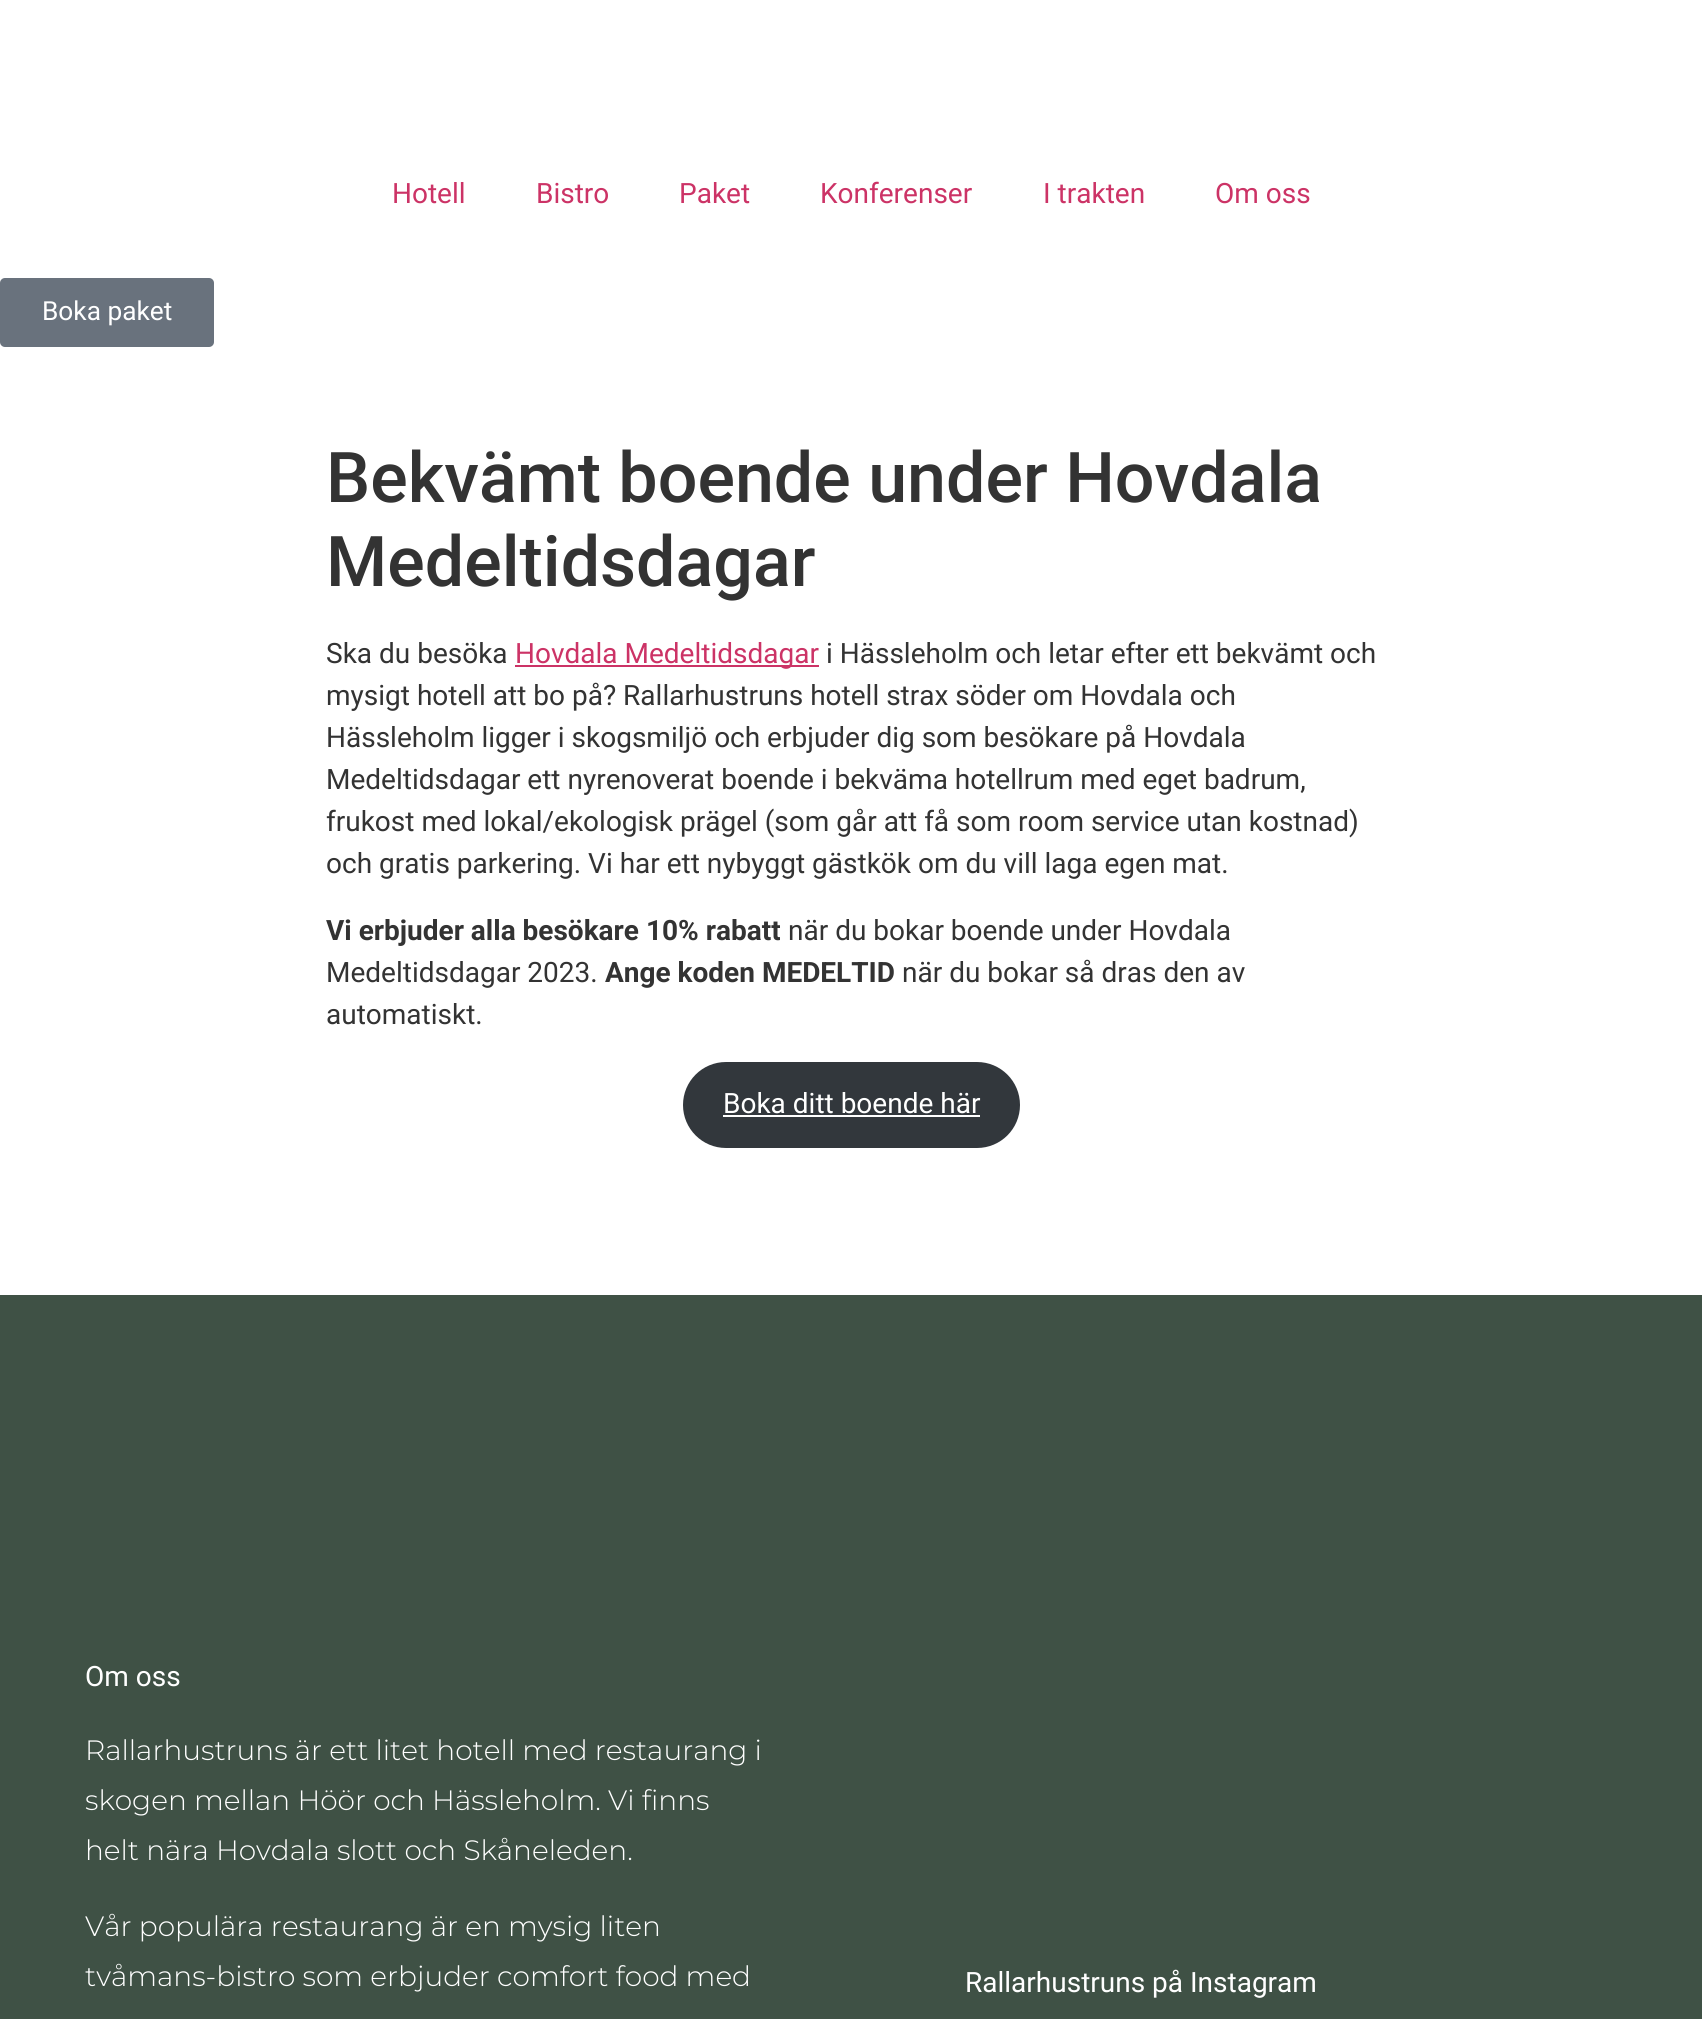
import math
import cairo

surface = cairo.ImageSurface(cairo.FORMAT_RGB24, 1702, 2019)
cr = cairo.Context(surface)
options = cairo.FontOptions()
options.set_hint_metrics(cairo.HINT_METRICS_OFF)
options.set_hint_style(cairo.HINT_STYLE_NONE)
cr.set_font_options(options)
cr.set_miter_limit(4)


def rgb(code):
    cr.set_source_rgb(*(v / 255 for v in bytes.fromhex(code[-6:])))


def rrect(x, y, w, h, r):
    cr.new_sub_path()
    for i, (u, v) in enumerate([(x + w - r, y + h - r), (x + r, y + h - r), (x + r, y + r), (x + w - r, y + r)]):
        cr.arc(u, v, r, i * math.pi / 2, (i + 1) * math.pi / 2)
    cr.close_path()


rgb("#ffffff")
cr.paint()
rgb("#69727d")
rrect(0, 278, 214, 69, 5)
cr.fill()
rgb("#cc3366")
cr.rectangle(515, 665, 304, 2)
cr.fill()
rgb("#32373c")
rrect(683, 1062, 337, 86, 43)
cr.fill()
rgb("#ffffff")
cr.rectangle(723, 1115, 257, 2)
cr.fill()
rgb("#3f5145")
cr.rectangle(0, 1295, 1702, 724)
cr.fill()
cr.select_font_face("Roboto")
cr.set_font_size(28)
rgb("#cc3366")
for x, y, s in [
    (392, 203, "Hotell"),
    (536, 203, "Bistro"),
    (679, 203, "Paket"),
    (820, 203, "Konferenser"),
    (1043, 203, "I trakten"),
    (1215, 203, "Om oss"),
]:
    cr.move_to(x, y)
    cr.show_text(s)
cr.set_font_size(26.25)
rgb("#ffffff")
cr.move_to(42, 320)
cr.show_text("Boka paket")
cr.select_font_face("Roboto Medium")
cr.set_font_size(70)
rgb("#333333")
cr.move_to(326, 502)
cr.show_text("Bekvämt boende under Hovdala")
cr.move_to(326, 586)
cr.show_text("Medeltidsdagar")
cr.select_font_face("Roboto")
cr.set_font_size(28)
cr.move_to(326, 663)
cr.show_text("Ska du besöka")
rgb("#cc3366")
cr.move_to(515, 663)
cr.show_text("Hovdala Medeltidsdagar")
rgb("#333333")
for x, y, s in [
    (826, 663, "i Hässleholm och letar efter ett bekvämt och"),
    (326, 705, "mysigt hotell att bo på? Rallarhustruns hotell strax söder om Hovdala och"),
    (326, 747, "Hässleholm ligger i skogsmiljö och erbjuder dig som besökare på Hovdala"),
    (326, 789, "Medeltidsdagar ett nyrenoverat boende i bekväma hotellrum med eget badrum,"),
    (326, 831, "frukost med lokal/ekologisk prägel (som går att få som room service utan kostnad)"),
    (326, 873, "och gratis parkering. Vi har ett nybyggt gästkök om du vill laga egen mat."),
]:
    cr.move_to(x, y)
    cr.show_text(s)
cr.select_font_face("Roboto", cairo.FONT_SLANT_NORMAL, cairo.FONT_WEIGHT_BOLD)
cr.move_to(326, 940)
cr.show_text("Vi erbjuder alla besökare 10% rabatt")
cr.select_font_face("Roboto")
cr.move_to(788, 940)
cr.show_text("när du bokar boende under Hovdala")
cr.move_to(326, 982)
cr.show_text("Medeltidsdagar 2023.")
cr.select_font_face("Roboto", cairo.FONT_SLANT_NORMAL, cairo.FONT_WEIGHT_BOLD)
cr.move_to(605, 982)
cr.show_text("Ange koden MEDELTID")
cr.select_font_face("Roboto")
cr.move_to(902, 982)
cr.show_text("när du bokar så dras den av")
cr.move_to(326, 1024)
cr.show_text("automatiskt.")
rgb("#ffffff")
cr.move_to(723, 1113)
cr.show_text("Boka ditt boende här")
cr.move_to(85, 1686)
cr.show_text("Om oss")
cr.select_font_face("Montserrat Light")
for x, y, s in [
    (85, 1760, "Rallarhustruns är ett litet hotell med restaurang i"),
    (85, 1810, "skogen mellan Höör och Hässleholm. Vi finns"),
    (85, 1860, "helt nära Hovdala slott och Skåneleden."),
    (85, 1936, "Vår populära restaurang är en mysig liten"),
    (85, 1986, "tvåmans-bistro som erbjuder comfort food med"),
]:
    cr.move_to(x, y)
    cr.show_text(s)
cr.select_font_face("Roboto")
cr.move_to(965, 1992)
cr.show_text("Rallarhustruns på Instagram")
surface.write_to_png("page.png")
